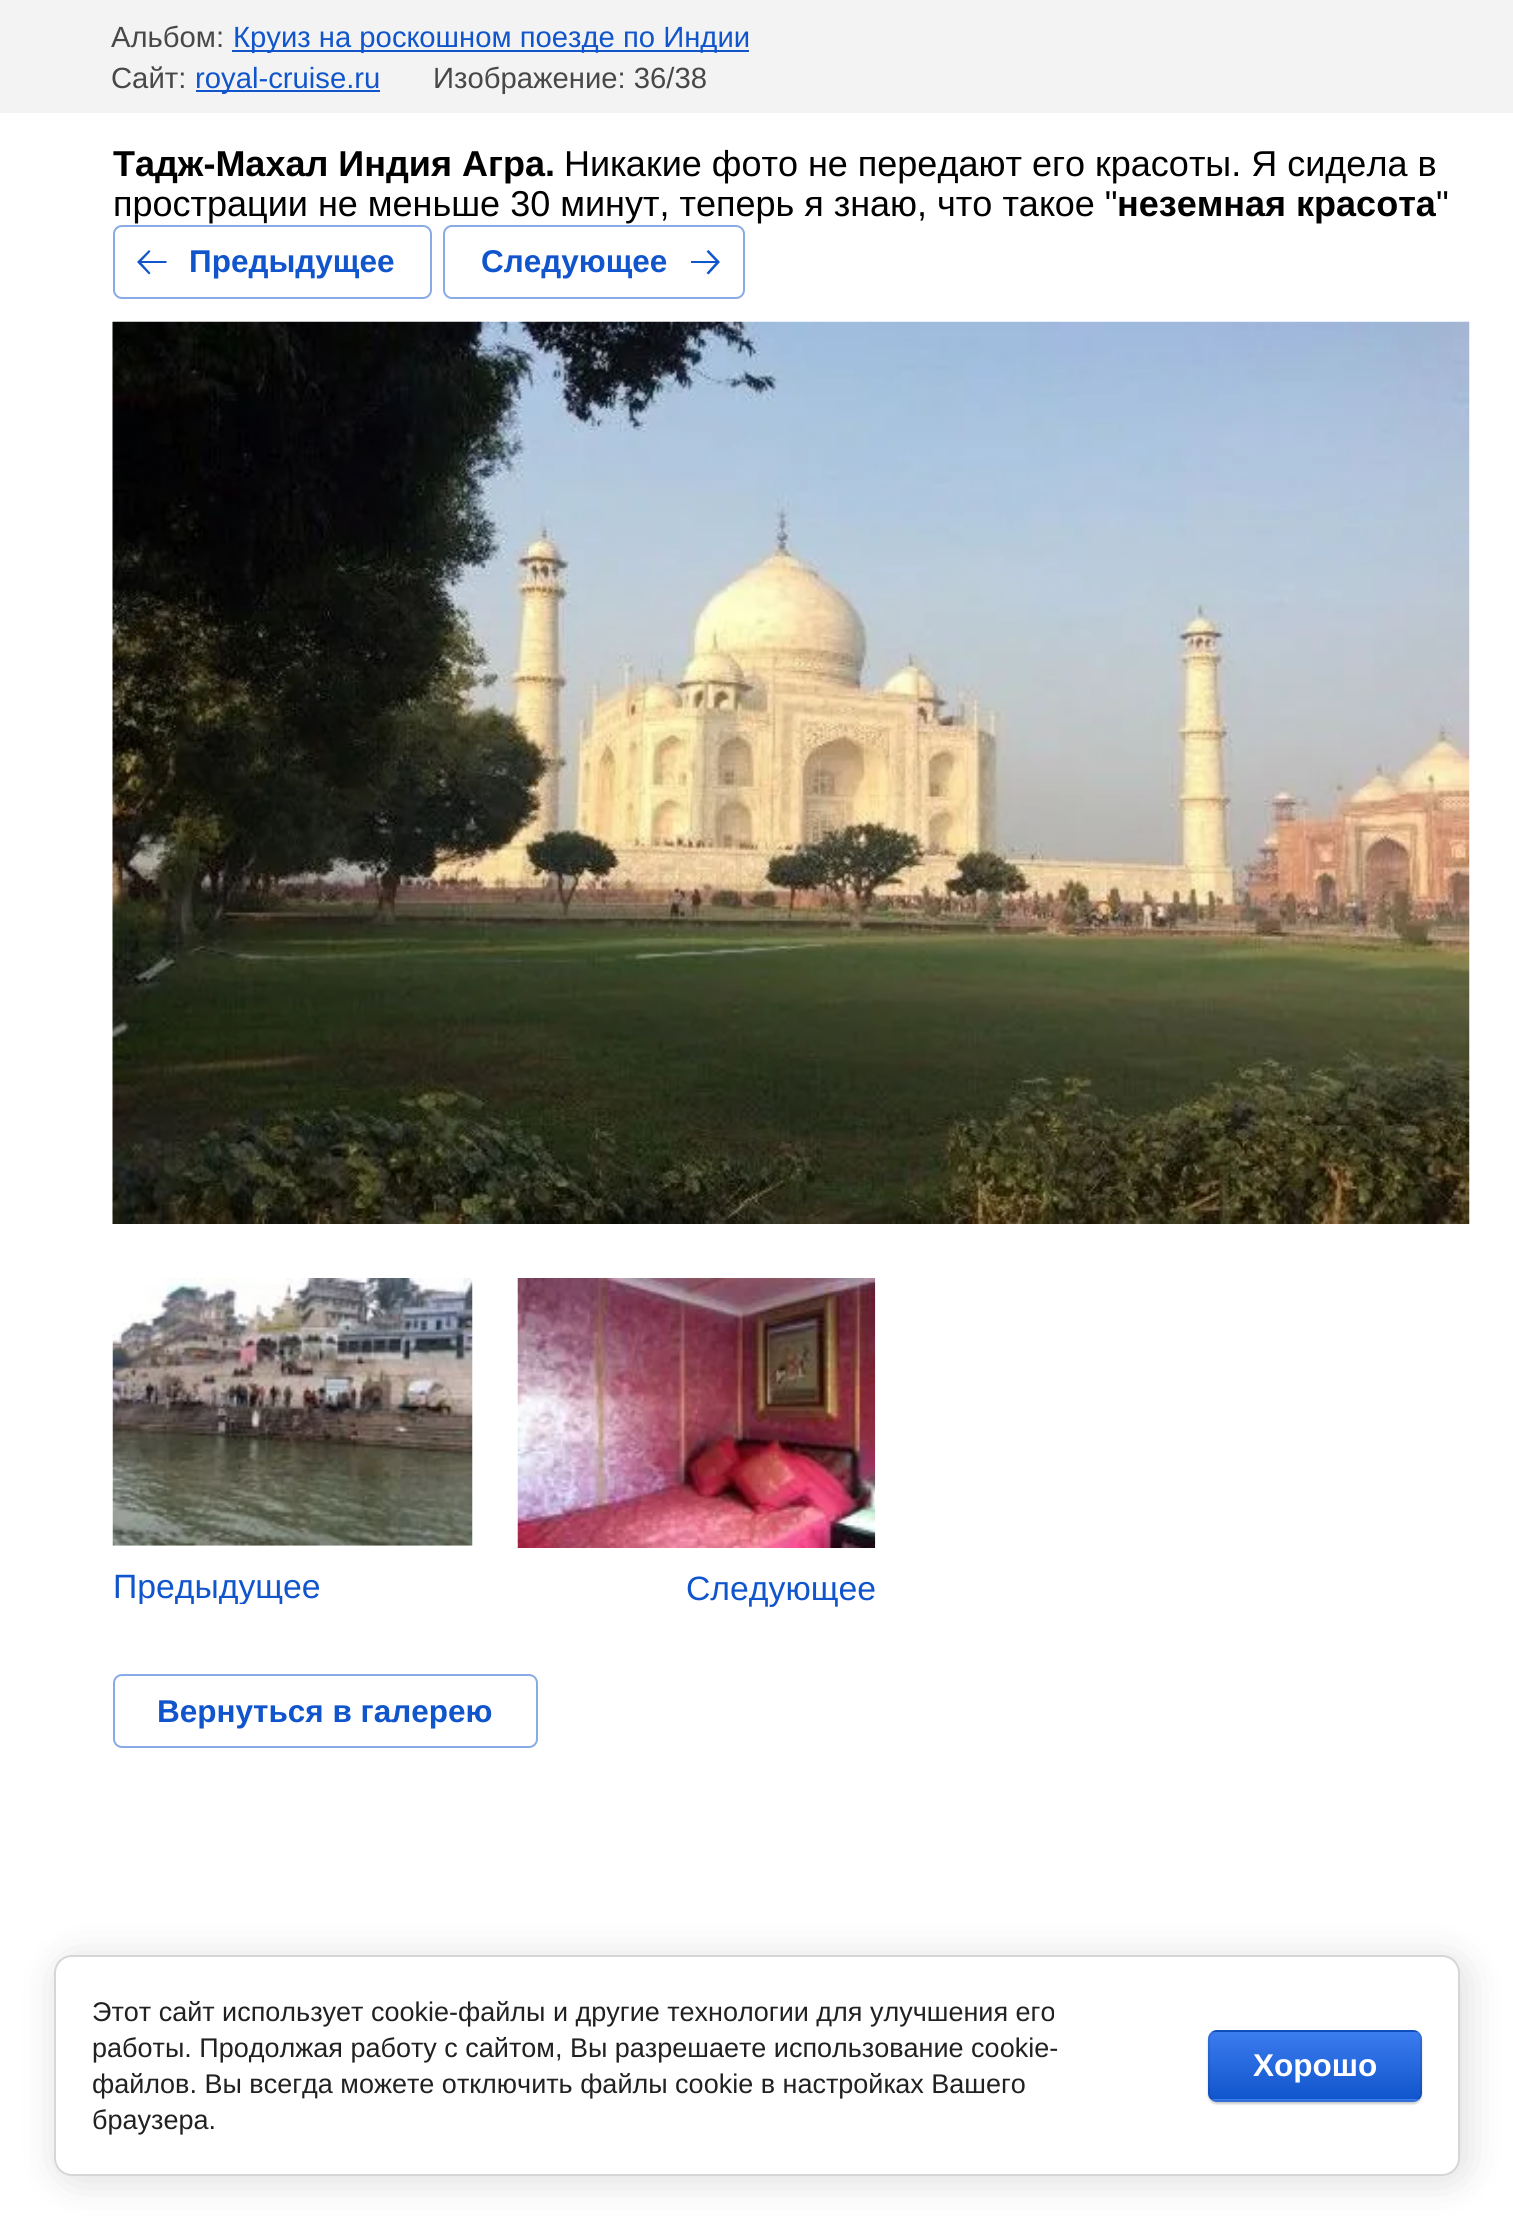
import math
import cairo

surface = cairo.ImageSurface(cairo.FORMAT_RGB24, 1513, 2229)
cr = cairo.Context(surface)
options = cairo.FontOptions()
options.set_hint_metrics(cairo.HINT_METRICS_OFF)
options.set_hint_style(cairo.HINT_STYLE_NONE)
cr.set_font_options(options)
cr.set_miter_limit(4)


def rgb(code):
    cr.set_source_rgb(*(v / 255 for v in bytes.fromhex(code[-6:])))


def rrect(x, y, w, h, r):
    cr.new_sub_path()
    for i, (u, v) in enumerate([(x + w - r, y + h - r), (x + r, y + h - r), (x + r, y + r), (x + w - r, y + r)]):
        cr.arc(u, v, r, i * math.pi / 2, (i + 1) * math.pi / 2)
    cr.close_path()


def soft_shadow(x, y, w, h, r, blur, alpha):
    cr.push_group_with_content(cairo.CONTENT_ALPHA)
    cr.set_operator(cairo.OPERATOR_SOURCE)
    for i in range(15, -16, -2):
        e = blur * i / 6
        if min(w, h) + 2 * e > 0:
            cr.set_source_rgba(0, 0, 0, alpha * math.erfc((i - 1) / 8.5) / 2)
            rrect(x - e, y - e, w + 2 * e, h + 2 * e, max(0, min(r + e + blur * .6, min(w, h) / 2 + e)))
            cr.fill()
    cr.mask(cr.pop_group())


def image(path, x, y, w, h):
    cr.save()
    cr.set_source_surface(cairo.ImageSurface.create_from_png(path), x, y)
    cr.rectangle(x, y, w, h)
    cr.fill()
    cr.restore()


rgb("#ffffff")
cr.paint()
for x, y, w, h, color in [
    (0, 0, 1513, 113, "#f3f3f3"),
    (232, 50, 517, 2, "#1155cc"),
    (196, 90, 184, 2, "#1155cc"),
]:
    rgb(color)
    cr.rectangle(x, y, w, h)
    cr.fill()
rrect(114, 226, 317, 72, 8)
rgb("#88aae6")
cr.stroke()
rgb("#1155cc")
cr.new_path()
cr.move_to(150.5, 251.5)
cr.line_to(149, 250)
cr.line_to(137, 262)
cr.line_to(149, 274.5)
cr.line_to(150.5, 273)
cr.line_to(141.5, 263)
cr.line_to(166.5, 263)
cr.line_to(166.5, 261)
cr.line_to(141.5, 261)
cr.close_path()
cr.fill()
rrect(444, 226, 300, 72, 8)
rgb("#88aae6")
cr.stroke()
rgb("#1155cc")
cr.new_path()
cr.move_to(706.5, 251.5)
cr.line_to(708.5, 250)
cr.line_to(720, 262)
cr.line_to(708.5, 274.5)
cr.line_to(706.5, 273)
cr.line_to(715.5, 263)
cr.line_to(691, 263)
cr.line_to(691, 261)
cr.line_to(715.5, 261)
cr.close_path()
cr.fill()
image("img/1.png", 112, 321, 1358, 903)
image("img/2.png", 112, 1278, 361, 268)
image("img/3.png", 517, 1278, 359, 270)
rrect(114, 1675, 423, 72, 8)
rgb("#88aae6")
cr.stroke()
rgb("#000000")
soft_shadow(59, 1960, 1406, 220, 18, 20, 0.14)
rgb("#ffffff")
rrect(55, 1956, 1404, 219, 17)
cr.fill_preserve()
rgb("#d6d6d6")
cr.stroke()
rgb("#000000")
soft_shadow(1208, 2032, 214, 72, 9, 1, 0.2)
cr.save()
rrect(1208, 2030, 214, 72, 9)
cr.clip()
gradient = cairo.LinearGradient(1315, 1964, 1315, 2032)
gradient.add_color_stop_rgba(0, 0.231, 0.486, 0.937, 1)
gradient.add_color_stop_rgba(1, 0.067, 0.333, 0.8, 1)
cr.set_source(gradient)
cr.rectangle(1208, 2030, 214, 2)
cr.fill()
gradient = cairo.LinearGradient(1315, 2032, 1315, 2099)
gradient.add_color_stop_rgba(0, 0.231, 0.486, 0.937, 1)
gradient.add_color_stop_rgba(1, 0.067, 0.333, 0.8, 1)
cr.set_source(gradient)
cr.rectangle(1208, 2032, 214, 67)
cr.fill()
gradient = cairo.LinearGradient(1315, 2099, 1315, 2167)
gradient.add_color_stop_rgba(0, 0.231, 0.486, 0.937, 1)
gradient.add_color_stop_rgba(1, 0.067, 0.333, 0.8, 1)
cr.set_source(gradient)
cr.rectangle(1208, 2099, 214, 3)
cr.fill()
cr.restore()
rrect(1209, 2031, 212, 70, 8)
cr.set_source_rgba(0, 0, 0, 0.1)
cr.stroke()
cr.select_font_face("Liberation Sans")
cr.set_font_size(29.25)
rgb("#484848")
cr.move_to(111, 47)
cr.show_text("Альбом:")
rgb("#1155cc")
cr.move_to(233, 47)
cr.show_text("Круиз на роскошном поезде по Индии")
rgb("#484848")
cr.move_to(111, 88)
cr.show_text("Сайт:")
rgb("#1155cc")
cr.move_to(195, 88)
cr.show_text("royal-cruise.ru")
rgb("#484848")
cr.move_to(433, 88)
cr.show_text("Изображение: 36/38")
cr.select_font_face("Liberation Sans", cairo.FONT_SLANT_NORMAL, cairo.FONT_WEIGHT_BOLD)
cr.set_font_size(36)
rgb("#000000")
cr.move_to(113, 176)
cr.show_text("Тадж-Махал Индия Агра.")
cr.select_font_face("Liberation Sans")
for x, y, s in [
    (564, 176, "Никакие фото не передают его красоты. Я сидела в"),
    (113, 216, "прострации не меньше 30 минут, теперь я знаю, что такое \""),
    (1436, 216, "\""),
]:
    cr.move_to(x, y)
    cr.show_text(s)
cr.select_font_face("Liberation Sans", cairo.FONT_SLANT_NORMAL, cairo.FONT_WEIGHT_BOLD)
cr.move_to(1117, 216)
cr.show_text("неземная красота")
cr.set_font_size(31.5)
rgb("#1155cc")
cr.move_to(189, 272)
cr.show_text("Предыдущее")
cr.move_to(481, 272)
cr.show_text("Следующее")
cr.save()
cr.rectangle(113, 1278, 360, 326)
cr.clip()
cr.select_font_face("Liberation Sans")
cr.set_font_size(33.75)
cr.move_to(113, 1598)
cr.show_text("Предыдущее")
cr.restore()
cr.select_font_face("Liberation Sans")
cr.set_font_size(33.75)
cr.move_to(686, 1600)
cr.show_text("Следующее")
cr.select_font_face("Liberation Sans", cairo.FONT_SLANT_NORMAL, cairo.FONT_WEIGHT_BOLD)
cr.set_font_size(31.5)
cr.move_to(157, 1722)
cr.show_text("Вернуться в галерею")
cr.select_font_face("Liberation Sans")
cr.set_font_size(27)
rgb("#212121")
for x, y, s in [
    (92, 2021, "Этот сайт использует cookie-файлы и другие технологии для улучшения его"),
    (92, 2057, "работы. Продолжая работу с сайтом, Вы разрешаете использование cookie-"),
    (92, 2093, "файлов. Вы всегда можете отключить файлы cookie в настройках Вашего"),
    (92, 2129, "браузера."),
]:
    cr.move_to(x, y)
    cr.show_text(s)
cr.select_font_face("Liberation Sans", cairo.FONT_SLANT_NORMAL, cairo.FONT_WEIGHT_BOLD)
cr.set_font_size(31.5)
rgb("#ffffff")
cr.move_to(1253, 2076)
cr.show_text("Хорошо")
surface.write_to_png("page.png")
